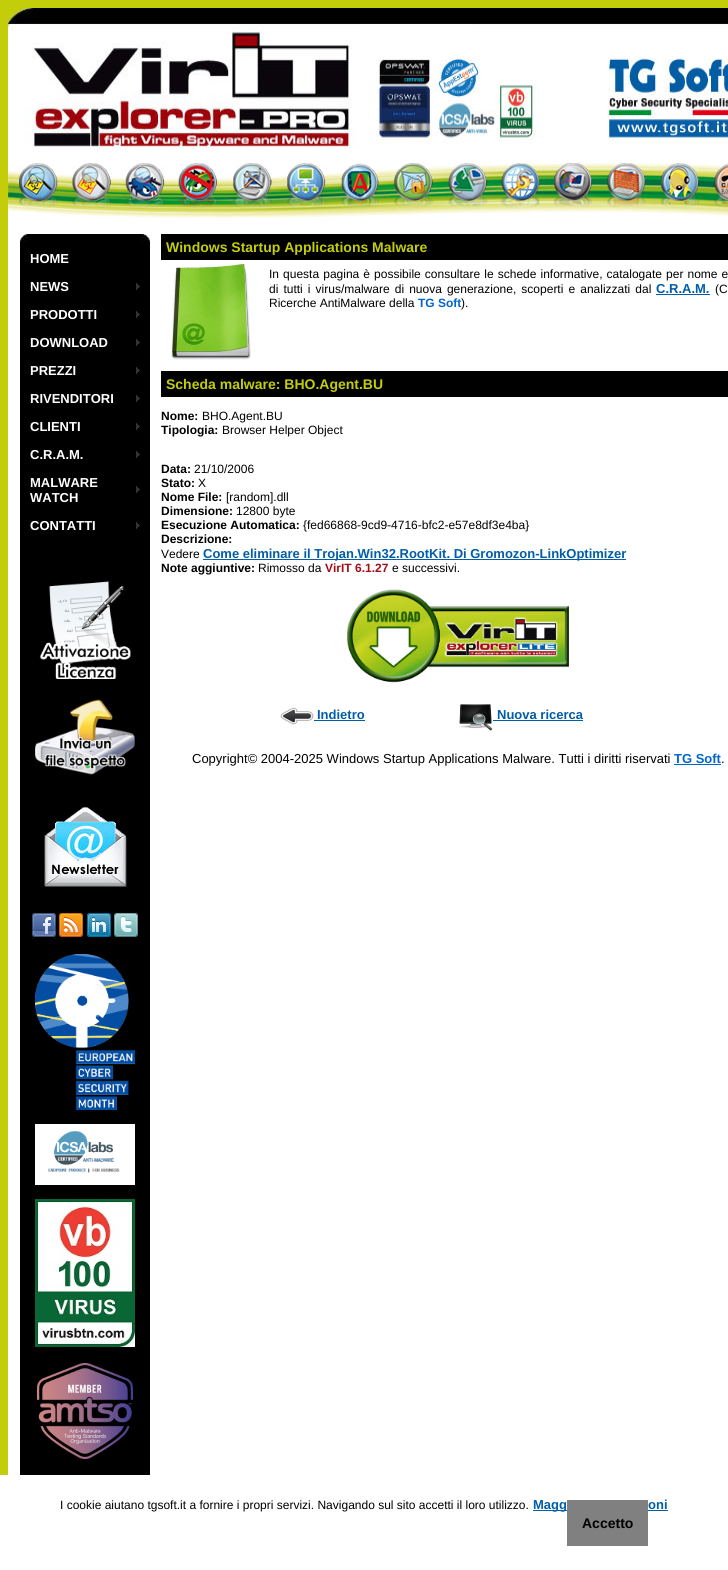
import math
import cairo

surface = cairo.ImageSurface(cairo.FORMAT_RGB24, 728, 1570)
cr = cairo.Context(surface)
options = cairo.FontOptions()
options.set_hint_metrics(cairo.HINT_METRICS_OFF)
options.set_hint_style(cairo.HINT_STYLE_NONE)
cr.set_font_options(options)
cr.set_miter_limit(4)


def rgb(code):
    cr.set_source_rgb(*(v / 255 for v in bytes.fromhex(code[-6:])))


def tracked(x, y, s, letter, word):
    cr.move_to(x, y)
    for ch in s:
        cr.show_text(ch)
        cr.rel_move_to(letter + word * (ch == ' '), 0)


def image(path, x, y, w, h):
    cr.save()
    cr.set_source_surface(cairo.ImageSurface.create_from_png(path), x, y)
    cr.rectangle(x, y, w, h)
    cr.fill()
    cr.restore()


rgb("#c3cd09")
cr.paint()
image("img/1.png", 8, 8, 720, 141)
image("img/2.png", 8, 149, 56, 71)
image("img/3.png", 64, 149, 54, 71)
image("img/4.png", 118, 149, 54, 71)
image("img/5.png", 172, 149, 54, 71)
image("img/6.png", 226, 149, 54, 71)
image("img/7.png", 280, 149, 54, 71)
image("img/8.png", 334, 149, 54, 71)
image("img/9.png", 388, 149, 54, 71)
image("img/10.png", 442, 149, 54, 71)
image("img/11.png", 496, 149, 50, 71)
image("img/12.png", 546, 149, 54, 71)
image("img/13.png", 600, 149, 54, 71)
image("img/14.png", 654, 149, 54, 71)
image("img/15.png", 708, 149, 20, 71)
for x, y, w, h, color in [
    (8, 220, 720, 14, "#ffffff"),
    (8, 234, 12, 1241, "#ffffff"),
    (20, 242, 130, 1233, "#000000"),
]:
    rgb(color)
    cr.rectangle(x, y, w, h)
    cr.fill()
image("img/16.png", 20, 234, 130, 8)
image("img/17.png", 136, 283, 4, 7)
image("img/17.png", 136, 311, 4, 7)
image("img/17.png", 136, 339, 4, 7)
image("img/17.png", 136, 367, 4, 7)
image("img/17.png", 136, 395, 4, 7)
image("img/17.png", 136, 423, 4, 7)
image("img/17.png", 136, 451, 4, 7)
image("img/17.png", 136, 486, 4, 7)
image("img/17.png", 136, 522, 4, 7)
image("img/18.png", 39, 581, 92, 98)
image("img/19.png", 35, 699, 100, 76)
image("img/20.png", 44, 806, 83, 81)
image("img/21.png", 32, 913, 24, 24)
image("img/22.png", 59, 913, 24, 24)
image("img/23.png", 87, 913, 24, 24)
image("img/24.png", 114, 913, 24, 24)
image("img/25.png", 35, 954, 100, 156)
image("img/26.png", 35, 1124, 100, 61)
image("img/27.png", 35, 1199, 100, 148)
image("img/28.png", 37, 1363, 96, 96)
for x, y, w, h, color in [
    (150, 234, 11, 1241, "#ffffff"),
    (161, 260, 567, 1215, "#ffffff"),
    (161, 234, 567, 26, "#000000"),
]:
    rgb(color)
    cr.rectangle(x, y, w, h)
    cr.fill()
image("img/29.png", 171, 264, 80, 96)
for x, y, w, h, color in [
    (656, 294, 54, 1, "#005da8"),
    (161, 371, 567, 26, "#000000"),
    (203, 559, 423, 1, "#005da8"),
]:
    rgb(color)
    cr.rectangle(x, y, w, h)
    cr.fill()
image("img/30.png", 347, 589, 222, 94)
image("img/31.png", 280, 707, 34, 18)
cr.rectangle(314, 720, 51, 1)
cr.fill()
image("img/32.png", 459, 704, 34, 27)
for x, y, w, h, color in [
    (493, 720, 90, 1, "#005da8"),
    (674, 764, 47, 1, "#0066cc"),
    (0, 1475, 728, 95, "#ffffff"),
    (533, 1510, 135, 1, "#005da8"),
    (567, 1500, 81, 46, "#808080"),
]:
    rgb(color)
    cr.rectangle(x, y, w, h)
    cr.fill()
cr.select_font_face("Liberation Sans", cairo.FONT_SLANT_NORMAL, cairo.FONT_WEIGHT_BOLD)
cr.set_font_size(13)
rgb("#ffffff")
for x, y, s in [
    (30, 263, "HOME"),
    (30, 291, "NEWS"),
    (30, 319, "PRODOTTI"),
    (30, 347, "DOWNLOAD"),
    (30, 375, "PREZZI"),
    (30, 403, "RIVENDITORI"),
    (30, 431, "CLIENTI"),
    (30, 459, "C.R.A.M."),
    (30, 487, "MALWARE"),
    (30, 502, "WATCH"),
    (30, 530, "CONTATTI"),
]:
    cr.move_to(x, y)
    cr.show_text(s)
cr.set_font_size(14)
rgb("#c3ce09")
cr.move_to(166, 252)
cr.show_text("Windows Startup Applications Malware")
cr.select_font_face("Liberation Sans")
cr.set_font_size(12)
rgb("#000000")
tracked(269, 278, "In questa pagina è possibile consultare le schede informative, catalogate per nome e", 0, 0.75)
tracked(269, 293, "di tutti i virus/malware di nuova generazione, scoperti e analizzati dal", 0, 1.75)
cr.select_font_face("Liberation Sans", cairo.FONT_SLANT_NORMAL, cairo.FONT_WEIGHT_BOLD)
cr.set_font_size(13)
rgb("#005da8")
cr.move_to(656, 293)
cr.show_text("C.R.A.M.")
cr.select_font_face("Liberation Sans")
cr.set_font_size(12)
rgb("#000000")
cr.move_to(715, 293)
cr.show_text("(C")
cr.move_to(269, 307)
cr.show_text("Ricerche AntiMalware della")
cr.select_font_face("Liberation Sans", cairo.FONT_SLANT_NORMAL, cairo.FONT_WEIGHT_BOLD)
rgb("#0066cc")
cr.move_to(418, 307)
cr.show_text("TG Soft")
cr.select_font_face("Liberation Sans")
rgb("#000000")
cr.move_to(461, 307)
cr.show_text(").")
cr.select_font_face("Liberation Sans", cairo.FONT_SLANT_NORMAL, cairo.FONT_WEIGHT_BOLD)
cr.set_font_size(14)
rgb("#c3ce09")
cr.move_to(166, 389)
cr.show_text("Scheda malware: BHO.Agent.BU")
cr.set_font_size(12)
rgb("#000000")
cr.move_to(161, 420)
cr.show_text("Nome:")
cr.select_font_face("Liberation Sans")
cr.move_to(202, 420)
cr.show_text("BHO.Agent.BU")
cr.select_font_face("Liberation Sans", cairo.FONT_SLANT_NORMAL, cairo.FONT_WEIGHT_BOLD)
cr.move_to(161, 434)
cr.show_text("Tipologia:")
cr.select_font_face("Liberation Sans")
cr.move_to(222, 434)
cr.show_text("Browser Helper Object")
cr.select_font_face("Liberation Sans", cairo.FONT_SLANT_NORMAL, cairo.FONT_WEIGHT_BOLD)
cr.move_to(161, 473)
cr.show_text("Data:")
cr.select_font_face("Liberation Sans")
cr.move_to(194, 473)
cr.show_text("21/10/2006")
cr.select_font_face("Liberation Sans", cairo.FONT_SLANT_NORMAL, cairo.FONT_WEIGHT_BOLD)
cr.move_to(161, 487)
cr.show_text("Stato:")
cr.select_font_face("Liberation Sans")
cr.move_to(198, 487)
cr.show_text("X")
cr.select_font_face("Liberation Sans", cairo.FONT_SLANT_NORMAL, cairo.FONT_WEIGHT_BOLD)
cr.move_to(161, 501)
cr.show_text("Nome File:")
cr.select_font_face("Liberation Sans")
cr.move_to(226, 501)
cr.show_text("[random].dll")
cr.select_font_face("Liberation Sans", cairo.FONT_SLANT_NORMAL, cairo.FONT_WEIGHT_BOLD)
cr.move_to(161, 515)
cr.show_text("Dimensione:")
cr.select_font_face("Liberation Sans")
cr.move_to(236, 515)
cr.show_text("12800 byte")
cr.select_font_face("Liberation Sans", cairo.FONT_SLANT_NORMAL, cairo.FONT_WEIGHT_BOLD)
cr.move_to(161, 529)
cr.show_text("Esecuzione Automatica:")
cr.select_font_face("Liberation Sans")
cr.move_to(303, 529)
cr.show_text("{fed66868-9cd9-4716-bfc2-e57e8df3e4ba}")
cr.select_font_face("Liberation Sans", cairo.FONT_SLANT_NORMAL, cairo.FONT_WEIGHT_BOLD)
cr.move_to(161, 543)
cr.show_text("Descrizione:")
cr.select_font_face("Liberation Sans")
cr.move_to(161, 558)
cr.show_text("Vedere")
cr.select_font_face("Liberation Sans", cairo.FONT_SLANT_NORMAL, cairo.FONT_WEIGHT_BOLD)
cr.set_font_size(13)
rgb("#005da8")
cr.move_to(203, 558)
cr.show_text("Come eliminare il Trojan.Win32.RootKit. Di Gromozon-LinkOptimizer")
cr.set_font_size(12)
rgb("#000000")
cr.move_to(161, 572)
cr.show_text("Note aggiuntive:")
cr.select_font_face("Liberation Sans")
cr.move_to(258, 572)
cr.show_text("Rimosso da")
cr.select_font_face("Liberation Sans", cairo.FONT_SLANT_NORMAL, cairo.FONT_WEIGHT_BOLD)
rgb("#a30e19")
cr.move_to(325, 572)
cr.show_text("VirIT 6.1.27")
cr.select_font_face("Liberation Sans")
rgb("#000000")
cr.move_to(392, 572)
cr.show_text("e successivi.")
cr.select_font_face("Liberation Sans", cairo.FONT_SLANT_NORMAL, cairo.FONT_WEIGHT_BOLD)
cr.set_font_size(13)
rgb("#005da8")
cr.move_to(317, 719)
cr.show_text("Indietro")
cr.move_to(497, 719)
cr.show_text("Nuova ricerca")
cr.select_font_face("Liberation Sans")
rgb("#000000")
cr.move_to(192, 763)
cr.show_text("Copyright© 2004-2025 Windows Startup Applications Malware. Tutti i diritti riservati")
cr.select_font_face("Liberation Sans", cairo.FONT_SLANT_NORMAL, cairo.FONT_WEIGHT_BOLD)
rgb("#0066cc")
cr.move_to(674, 763)
cr.show_text("TG Soft")
cr.select_font_face("Liberation Sans")
rgb("#000000")
cr.move_to(721, 763)
cr.show_text(".")
cr.set_font_size(12)
cr.move_to(60, 1509)
cr.show_text("I cookie aiutano tgsoft.it a fornire i propri servizi. Navigando sul sito accetti il loro utilizzo.")
cr.select_font_face("Liberation Sans", cairo.FONT_SLANT_NORMAL, cairo.FONT_WEIGHT_BOLD)
cr.set_font_size(13)
rgb("#005da8")
cr.move_to(533, 1509)
cr.show_text("Magg")
cr.move_to(648, 1509)
cr.show_text("oni")
cr.set_font_size(14)
rgb("#000000")
cr.move_to(582, 1528)
cr.show_text("Accetto")
surface.write_to_png("page.png")
